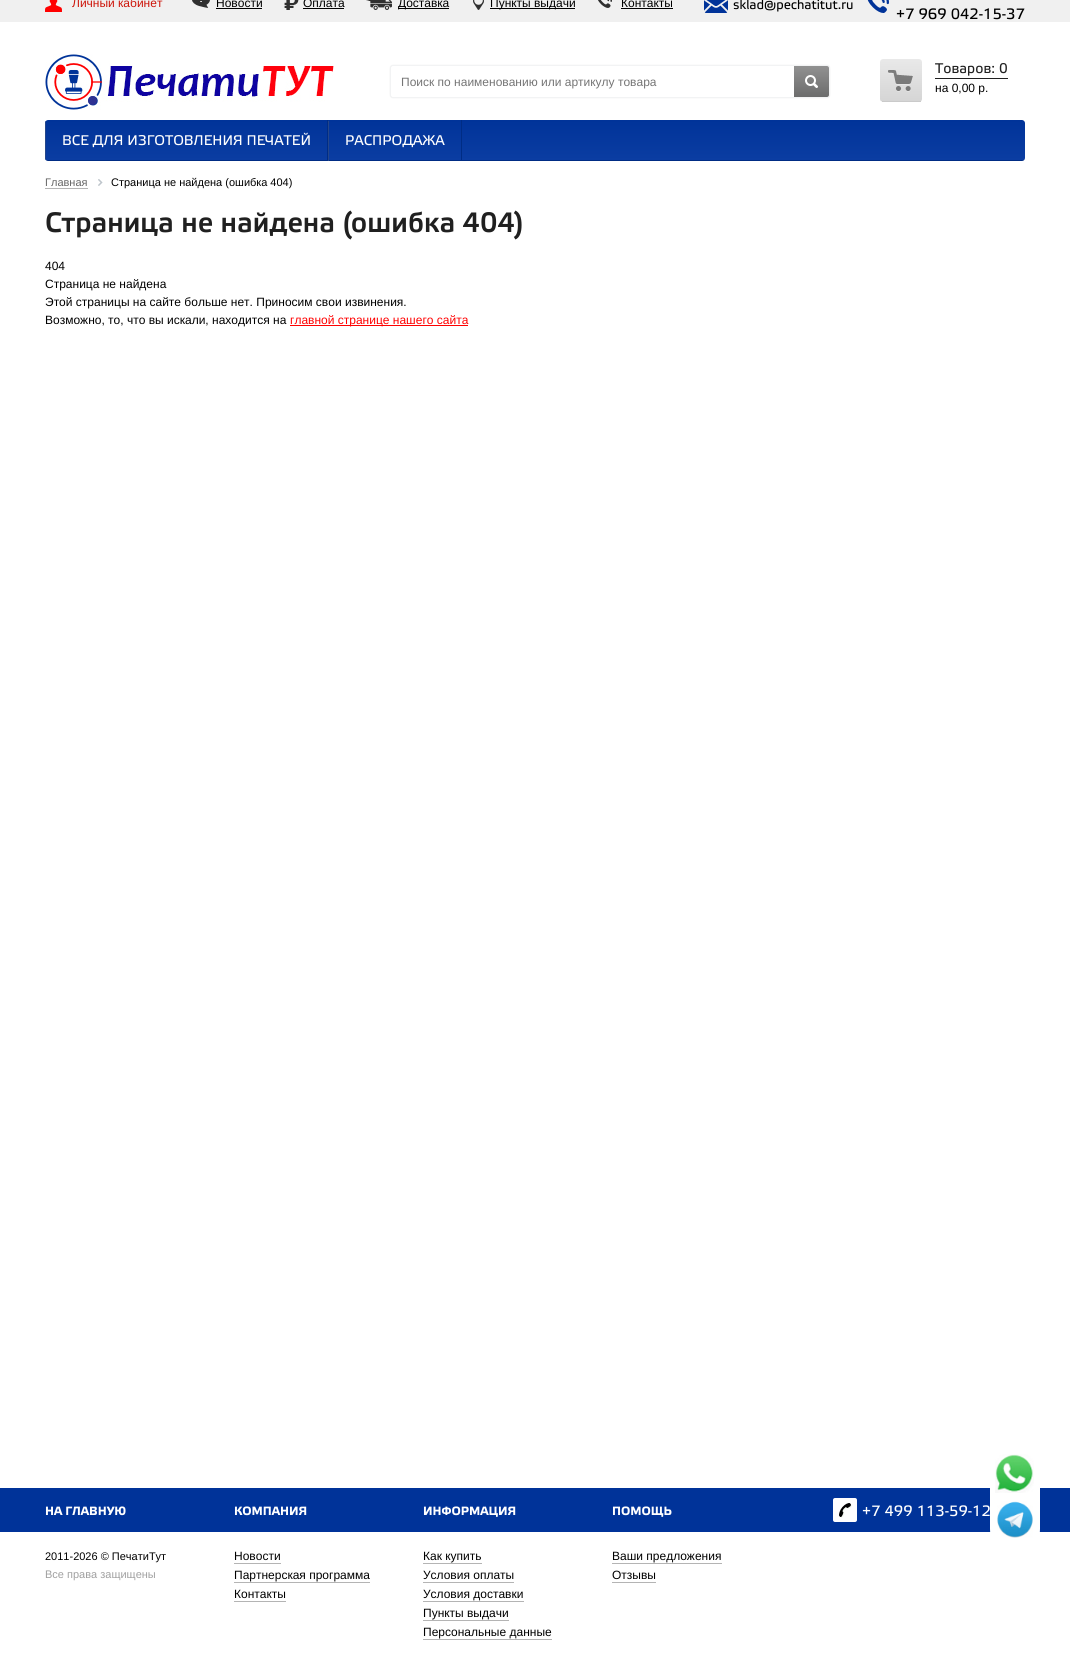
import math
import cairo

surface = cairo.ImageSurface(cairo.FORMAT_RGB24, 1070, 1654)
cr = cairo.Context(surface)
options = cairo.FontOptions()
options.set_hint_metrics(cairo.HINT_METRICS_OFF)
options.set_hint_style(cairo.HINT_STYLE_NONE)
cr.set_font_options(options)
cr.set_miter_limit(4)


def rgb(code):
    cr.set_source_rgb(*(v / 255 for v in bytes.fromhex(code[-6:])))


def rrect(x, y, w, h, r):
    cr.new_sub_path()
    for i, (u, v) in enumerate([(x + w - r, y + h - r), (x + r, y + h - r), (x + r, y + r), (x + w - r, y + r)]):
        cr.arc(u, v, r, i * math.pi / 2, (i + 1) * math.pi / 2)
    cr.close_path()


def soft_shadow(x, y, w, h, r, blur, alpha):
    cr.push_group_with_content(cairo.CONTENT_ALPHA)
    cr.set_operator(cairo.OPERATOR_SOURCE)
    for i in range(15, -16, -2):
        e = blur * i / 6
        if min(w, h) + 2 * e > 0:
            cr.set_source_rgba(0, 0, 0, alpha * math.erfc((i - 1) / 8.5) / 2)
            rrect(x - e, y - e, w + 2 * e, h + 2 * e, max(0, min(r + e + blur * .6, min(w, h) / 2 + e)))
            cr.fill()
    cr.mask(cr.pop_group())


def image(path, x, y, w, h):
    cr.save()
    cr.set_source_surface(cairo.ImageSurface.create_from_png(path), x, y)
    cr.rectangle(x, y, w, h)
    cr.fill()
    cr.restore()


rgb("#ffffff")
cr.paint()
rgb("#f0f0f0")
cr.rectangle(0, 0, 1070, 22)
cr.fill()
image("img/1.png", 45, 0, 17, 12)
image("img/2.png", 192, 0, 18, 8)
rgb("#000000")
cr.rectangle(216, 8, 46, 1)
cr.fill()
image("img/3.png", 284, 0, 15, 10)
cr.rectangle(303, 8, 41, 1)
cr.fill()
image("img/4.png", 366, 0, 26, 10)
cr.rectangle(398, 8, 51, 1)
cr.fill()
image("img/5.png", 473, 0, 11, 10)
cr.rectangle(490, 8, 85, 1)
cr.fill()
image("img/6.png", 598, 0, 14, 8)
cr.rectangle(621, 8, 52, 1)
cr.fill()
image("img/7.png", 704, 0, 24, 13)
image("img/8.png", 867, 0, 22, 13)
image("img/9.png", 45, 54, 289, 56)
rgb("#ededed")
soft_shadow(390, 65, 440, 33, 3, 0.5, 1)
rgb("#ffffff")
rrect(390.5, 65.5, 439, 32, 2.5)
cr.fill_preserve()
rgb("#f2f3f4")
cr.set_line_width(1)
cr.stroke()
gradient = cairo.LinearGradient(812, 66, 812, 97)
gradient.add_color_stop_rgba(0, 0.569, 0.569, 0.569, 1)
gradient.add_color_stop_rgba(1, 0.424, 0.424, 0.424, 1)
cr.set_source(gradient)
cr.new_path()
cr.move_to(794, 66)
cr.line_to(827, 66)
cr.curve_to(828, 66, 829, 67, 829, 68)
cr.line_to(829, 95)
cr.curve_to(829, 96, 828, 97, 827, 97)
cr.line_to(794, 97)
cr.close_path()
cr.fill()
image("img/10.png", 805, 75, 13, 13)
cr.save()
rrect(880, 59, 42, 43, 3)
cr.clip()
gradient = cairo.LinearGradient(901, 59, 901, 101)
gradient.add_color_stop_rgba(0, 0.914, 0.914, 0.914, 1)
gradient.add_color_stop_rgba(1, 0.835, 0.835, 0.835, 1)
cr.set_source(gradient)
cr.new_path()
cr.move_to(883, 59)
cr.line_to(919, 59)
cr.curve_to(920.5, 59, 922, 60.5, 922, 62)
cr.line_to(922, 101)
cr.line_to(880, 101)
cr.line_to(880, 62)
cr.curve_to(880, 60.5, 881.5, 59, 883, 59)
cr.close_path()
cr.fill()
gradient = cairo.LinearGradient(901, 101, 901, 143)
gradient.add_color_stop_rgba(0, 0.914, 0.914, 0.914, 1)
gradient.add_color_stop_rgba(1, 0.835, 0.835, 0.835, 1)
cr.set_source(gradient)
cr.rectangle(880, 101, 42, 1)
cr.fill()
cr.restore()
rgb("#cacaca")
cr.rectangle(882, 101, 39, 1)
cr.fill()
image("img/11.png", 888, 70, 25, 22)
rgb("#202020")
cr.rectangle(935, 78, 73, 1)
cr.fill()
cr.save()
rrect(45, 120, 980, 41, 3)
cr.clip()
gradient = cairo.LinearGradient(186, 120, 186, 160)
gradient.add_color_stop_rgba(0, 0, 0.2, 0.6, 1)
gradient.add_color_stop_rgba(1, 0.043, 0.239, 0.635, 1)
cr.set_source(gradient)
cr.new_path()
cr.move_to(48, 120)
cr.line_to(328, 120)
cr.line_to(328, 160)
cr.line_to(45, 160)
cr.line_to(45, 123)
cr.curve_to(45, 121.5, 46.5, 120, 48, 120)
cr.close_path()
cr.fill()
cr.restore()
rgb("#002c84")
cr.rectangle(327, 120, 1, 41)
cr.fill()
cr.save()
rrect(45, 120, 980, 41, 3)
cr.clip()
cr.rectangle(45, 160, 283, 1)
cr.fill()
rgb("#24468a")
cr.rectangle(45, 121, 1, 40)
cr.fill()
cr.restore()
gradient = cairo.LinearGradient(395, 120, 395, 160)
gradient.add_color_stop_rgba(0, 0, 0.2, 0.6, 1)
gradient.add_color_stop_rgba(1, 0.043, 0.239, 0.635, 1)
cr.set_source(gradient)
cr.rectangle(328, 120, 133, 40)
cr.fill()
for x, y, w, h, color in [
    (461, 120, 1, 41, "#002c84"),
    (328, 160, 134, 1, "#002c84"),
    (328, 121, 1, 40, "#24468a"),
]:
    rgb(color)
    cr.rectangle(x, y, w, h)
    cr.fill()
cr.save()
rrect(45, 120, 980, 41, 3)
cr.clip()
gradient = cairo.LinearGradient(952, 120, 952, 160)
gradient.add_color_stop_rgba(0, 0, 0.2, 0.6, 1)
gradient.add_color_stop_rgba(1, 0.043, 0.239, 0.635, 1)
cr.set_source(gradient)
cr.new_path()
cr.move_to(462, 120)
cr.line_to(1022, 120)
cr.curve_to(1023.5, 120, 1025, 121.5, 1025, 123)
cr.line_to(1025, 160)
cr.line_to(462, 160)
cr.close_path()
cr.fill()
rgb("#002c84")
cr.rectangle(462, 160, 563, 1)
cr.fill()
cr.restore()
rgb("#b4b4b4")
cr.rectangle(45, 188, 43, 1)
cr.fill()
image("img/12.png", 98, 179, 5, 7)
rgb("#ff0101")
cr.rectangle(290, 325, 178, 1)
cr.fill()
rgb("#003399")
cr.rectangle(0, 1488, 1070, 44)
cr.fill()
rgb("#ffffff")
rrect(833, 1498, 24, 24, 2)
cr.fill()
image("img/13.png", 839, 1503, 13, 15)
for x, y, w, h, color in [
    (234, 1563, 47, 1, "#b4b4b4"),
    (234, 1582, 136, 1, "#b4b4b4"),
    (234, 1601, 52, 1, "#b4b4b4"),
    (423, 1563, 59, 1, "#b4b4b4"),
    (423, 1582, 91, 1, "#b4b4b4"),
    (423, 1601, 101, 1, "#b4b4b4"),
    (423, 1620, 86, 1, "#b4b4b4"),
    (423, 1639, 129, 1, "#b4b4b4"),
    (612, 1563, 110, 1, "#b4b4b4"),
    (612, 1582, 44, 1, "#b4b4b4"),
]:
    rgb(color)
    cr.rectangle(x, y, w, h)
    cr.fill()
rgb("#ffffff")
rrect(990, 1440, 50, 114, 25)
cr.fill()
image("img/14.png", 995, 1454, 39, 39)
image("img/15.png", 997, 1501, 36, 37)
cr.select_font_face("Liberation Sans")
cr.set_font_size(12)
rgb("#cd150a")
cr.move_to(72, 7)
cr.show_text("Личный кабинет")
rgb("#000000")
for x, y, s in [
    (216, 7, "Новости"),
    (303, 7, "Оплата"),
    (398, 7, "Доставка"),
    (490, 7, "Пункты выдачи"),
    (621, 7, "Контакты"),
]:
    cr.move_to(x, y)
    cr.show_text(s)
cr.select_font_face("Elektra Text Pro")
cr.set_font_size(13)
cr.move_to(733, 9)
cr.show_text("sklad@pechatitut.ru")
cr.set_font_size(15)
cr.move_to(896, 19)
cr.show_text("+7 969 042-15-37")
cr.select_font_face("Liberation Sans")
cr.set_font_size(12)
rgb("#757575")
cr.move_to(401, 86)
cr.show_text("Поиск по наименованию или артикулу товара")
cr.select_font_face("Elektra Text Pro")
cr.set_font_size(14)
rgb("#202020")
cr.move_to(935, 73)
cr.show_text("Товаров: 0")
cr.select_font_face("Liberation Sans")
cr.set_font_size(12)
rgb("#000000")
cr.move_to(935, 92)
cr.show_text("на 0,00 р.")
cr.select_font_face("Elektra Text Pro")
cr.set_font_size(14)
rgb("#ffffff")
cr.move_to(62, 145)
cr.show_text("ВСЕ ДЛЯ ИЗГОТОВЛЕНИЯ ПЕЧАТЕЙ")
cr.move_to(345, 145)
cr.show_text("РАСПРОДАЖА")
cr.select_font_face("Liberation Sans")
cr.set_font_size(11)
rgb("#666666")
cr.move_to(45, 186)
cr.show_text("Главная")
rgb("#000000")
cr.move_to(111, 186)
cr.show_text("Страница не найдена (ошибка 404)")
cr.select_font_face("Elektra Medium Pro")
cr.set_font_size(28)
rgb("#202020")
cr.move_to(45, 232)
cr.show_text("Страница не найдена (ошибка 404)")
cr.select_font_face("Liberation Sans")
cr.set_font_size(12)
rgb("#000000")
for x, y, s in [
    (45, 270, "404"),
    (45, 288, "Страница не найдена"),
    (45, 306, "Этой страницы на сайте больше нет. Приносим свои извинения."),
    (45, 324, "Возможно, то, что вы искали, находится на"),
]:
    cr.move_to(x, y)
    cr.show_text(s)
rgb("#ff0101")
cr.move_to(290, 324)
cr.show_text("главной странице нашего сайта")
cr.select_font_face("Elektra Text Pro", cairo.FONT_SLANT_NORMAL, cairo.FONT_WEIGHT_BOLD)
rgb("#ffffff")
for x, y, s in [
    (45, 1515, "НА ГЛАВНУЮ"),
    (234, 1515, "КОМПАНИЯ"),
    (423, 1515, "ИНФОРМАЦИЯ"),
    (612, 1515, "ПОМОЩЬ"),
]:
    cr.move_to(x, y)
    cr.show_text(s)
cr.select_font_face("Elektra Text Pro")
cr.set_font_size(15)
cr.move_to(862, 1516)
cr.show_text("+7 499 113-59-12")
cr.select_font_face("Liberation Sans")
cr.set_font_size(11)
rgb("#000000")
cr.move_to(45, 1560)
cr.show_text("2011-2026 © ПечатиТут")
rgb("#a0a0a0")
cr.move_to(45, 1578)
cr.show_text("Все права защищены")
cr.set_font_size(12)
rgb("#000000")
for x, y, s in [
    (234, 1560, "Новости"),
    (234, 1579, "Партнерская программа"),
    (234, 1598, "Контакты"),
    (423, 1560, "Как купить"),
    (423, 1579, "Условия оплаты"),
    (423, 1598, "Условия доставки"),
    (423, 1617, "Пункты выдачи"),
    (423, 1636, "Персональные данные"),
    (612, 1560, "Ваши предложения"),
    (612, 1579, "Отзывы"),
]:
    cr.move_to(x, y)
    cr.show_text(s)
surface.write_to_png("page.png")
